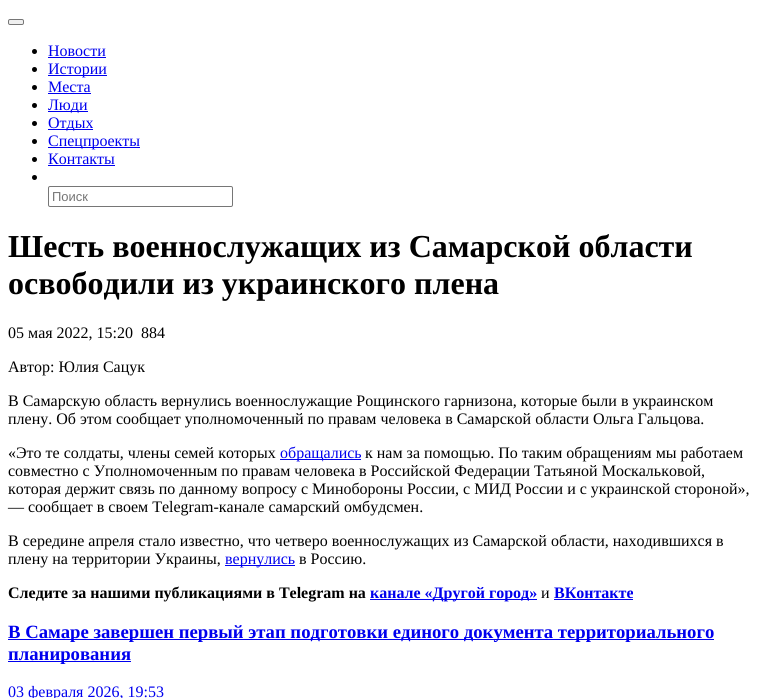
import math
import cairo

surface = cairo.ImageSurface(cairo.FORMAT_RGB24, 765, 698)
cr = cairo.Context(surface)
options = cairo.FontOptions()
options.set_hint_metrics(cairo.HINT_METRICS_OFF)
options.set_hint_style(cairo.HINT_STYLE_NONE)
cr.set_font_options(options)
cr.set_miter_limit(4)


def rgb(code):
    cr.set_source_rgb(*(v / 255 for v in bytes.fromhex(code[-6:])))


def rrect(x, y, w, h, r):
    cr.new_sub_path()
    for i, (u, v) in enumerate([(x + w - r, y + h - r), (x + r, y + h - r), (x + r, y + r), (x + w - r, y + r)]):
        cr.arc(u, v, r, i * math.pi / 2, (i + 1) * math.pi / 2)
    cr.close_path()


rgb("#ffffff")
cr.paint()
rgb("#efefef")
rrect(8.5, 19.5, 15, 5, 1.5)
cr.fill_preserve()
rgb("#767676")
cr.set_line_width(1)
cr.stroke()
rgb("#000000")
cr.arc(34.5, 51.5, 2.5, 0, 2 * math.pi)
cr.fill()
rgb("#0000ee")
cr.rectangle(48, 57, 58, 1)
cr.fill()
rgb("#000000")
cr.arc(34.5, 69.5, 2.5, 0, 2 * math.pi)
cr.fill()
rgb("#0000ee")
cr.rectangle(48, 75, 59, 1)
cr.fill()
rgb("#000000")
cr.arc(34.5, 87.5, 2.5, 0, 2 * math.pi)
cr.fill()
rgb("#0000ee")
cr.rectangle(48, 93, 43, 1)
cr.fill()
rgb("#000000")
cr.arc(34.5, 105.5, 2.5, 0, 2 * math.pi)
cr.fill()
rgb("#0000ee")
cr.rectangle(48, 111, 40, 1)
cr.fill()
rgb("#000000")
cr.arc(34.5, 123.5, 2.5, 0, 2 * math.pi)
cr.fill()
rgb("#0000ee")
cr.rectangle(48, 129, 45, 1)
cr.fill()
rgb("#000000")
cr.arc(34.5, 141.5, 2.5, 0, 2 * math.pi)
cr.fill()
rgb("#0000ee")
cr.rectangle(48, 147, 92, 1)
cr.fill()
rgb("#000000")
cr.arc(34.5, 159.5, 2.5, 0, 2 * math.pi)
cr.fill()
rgb("#0000ee")
cr.rectangle(48, 165, 67, 1)
cr.fill()
rgb("#000000")
cr.arc(34.5, 177.5, 2.5, 0, 2 * math.pi)
cr.fill()
rrect(48.5, 186.5, 184, 20, 1.5)
rgb("#767676")
cr.stroke()
for x, y, w, h, color in [
    (280, 459, 81, 1, "#0000ee"),
    (225, 565, 70, 1, "#0000ee"),
    (370, 599, 167, 1, "#0000ee"),
    (554, 599, 79, 1, "#0000ee"),
    (8, 639, 706, 1, "#0000ee"),
    (8, 661, 123, 1, "#0000ee"),
]:
    rgb(color)
    cr.rectangle(x, y, w, h)
    cr.fill()
cr.select_font_face("Liberation Serif")
cr.set_font_size(16)
for x, y, s in [
    (48, 56, "Новости"),
    (48, 74, "Истории"),
    (48, 92, "Места"),
    (48, 110, "Люди"),
    (48, 128, "Отдых"),
    (48, 146, "Спецпроекты"),
    (48, 164, "Контакты"),
]:
    cr.move_to(x, y)
    cr.show_text(s)
cr.select_font_face("Liberation Sans")
cr.set_font_size(13)
rgb("#757575")
cr.move_to(52, 201)
cr.show_text("Поиск")
cr.select_font_face("Liberation Serif", cairo.FONT_SLANT_NORMAL, cairo.FONT_WEIGHT_BOLD)
cr.set_font_size(32)
rgb("#000000")
cr.move_to(8, 257)
cr.show_text("Шесть военнослужащих из Самарской области")
cr.move_to(8, 294)
cr.show_text("освободили из украинского плена")
cr.select_font_face("Liberation Serif")
cr.set_font_size(16)
for x, y, s in [
    (8, 338, "05 мая 2022, 15:20"),
    (141, 338, "884"),
    (8, 372, "Автор: Юлия Сацук"),
    (8, 406, "В Самарскую область вернулись военнослужащие Рощинского гарнизона, которые были в украинском"),
    (8, 424, "плену. Об этом сообщает уполномоченный по правам человека в Самарской области Ольга Гальцова."),
    (8, 458, "«Это те солдаты, члены семей которых"),
]:
    cr.move_to(x, y)
    cr.show_text(s)
rgb("#0000ee")
cr.move_to(280, 458)
cr.show_text("обращались")
rgb("#000000")
for x, y, s in [
    (365, 458, "к нам за помощью. По таким обращениям мы работаем"),
    (8, 476, "совместно с Уполномоченным по правам человека в Российской Федерации Татьяной Москальковой,"),
    (8, 494, "которая держит связь по данному вопросу с Минобороны России, с МИД России и с украинской стороной»,"),
    (8, 512, "— сообщает в своем Telegram-канале самарский омбудсмен."),
    (8, 546, "В середине апреля стало известно, что четверо военнослужащих из Самарской области, находившихся в"),
    (8, 564, "плену на территории Украины,"),
]:
    cr.move_to(x, y)
    cr.show_text(s)
rgb("#0000ee")
cr.move_to(225, 564)
cr.show_text("вернулись")
rgb("#000000")
cr.move_to(299, 564)
cr.show_text("в Россию.")
cr.select_font_face("Liberation Serif", cairo.FONT_SLANT_NORMAL, cairo.FONT_WEIGHT_BOLD)
cr.move_to(8, 598)
cr.show_text("Следите за нашими публикациями в Telegram на")
rgb("#0000ee")
cr.move_to(370, 598)
cr.show_text("канале «Другой город»")
cr.select_font_face("Liberation Serif")
rgb("#000000")
cr.move_to(541, 598)
cr.show_text("и")
cr.select_font_face("Liberation Serif", cairo.FONT_SLANT_NORMAL, cairo.FONT_WEIGHT_BOLD)
rgb("#0000ee")
cr.move_to(554, 598)
cr.show_text("ВКонтакте")
cr.set_font_size(18.7)
cr.move_to(8, 638)
cr.show_text("В Самаре завершен первый этап подготовки единого документа территориального")
cr.move_to(8, 660)
cr.show_text("планирования")
cr.select_font_face("Liberation Serif")
cr.set_font_size(16)
cr.move_to(8, 697)
cr.show_text("03 февраля 2026, 19:53")
surface.write_to_png("page.png")
